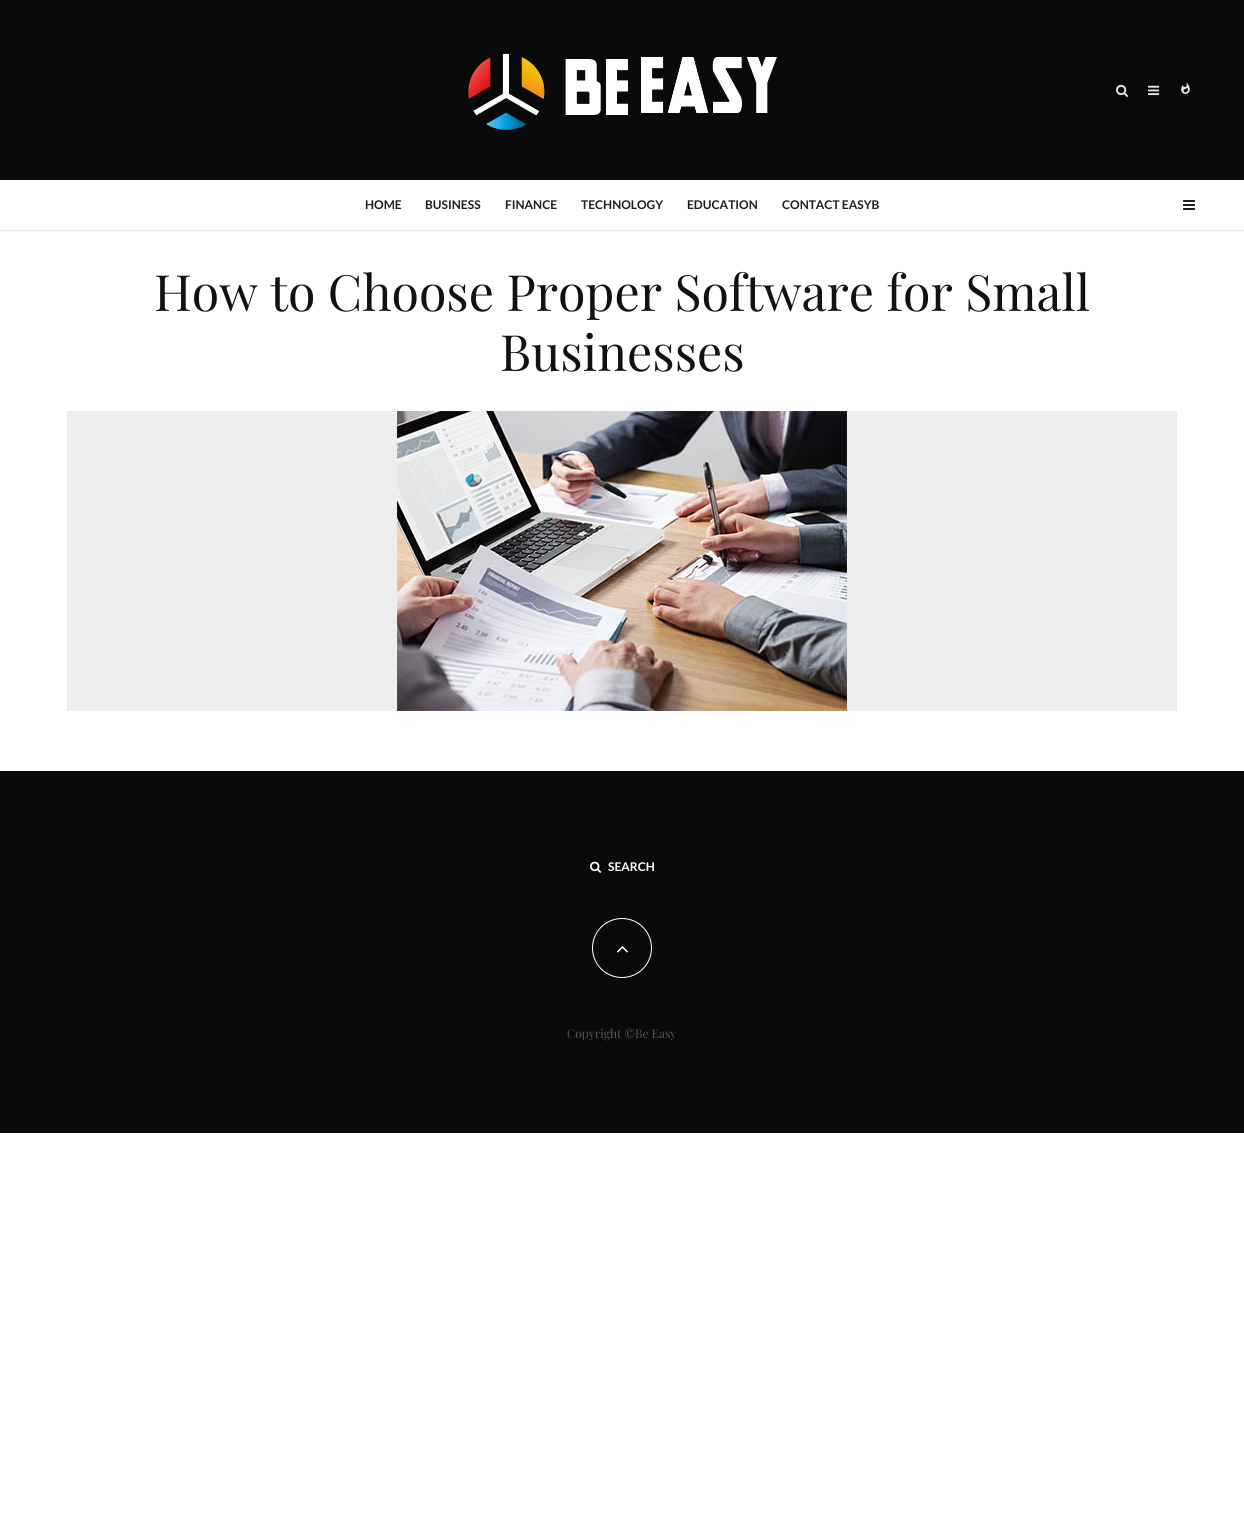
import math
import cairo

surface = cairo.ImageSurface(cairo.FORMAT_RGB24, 1244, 1525)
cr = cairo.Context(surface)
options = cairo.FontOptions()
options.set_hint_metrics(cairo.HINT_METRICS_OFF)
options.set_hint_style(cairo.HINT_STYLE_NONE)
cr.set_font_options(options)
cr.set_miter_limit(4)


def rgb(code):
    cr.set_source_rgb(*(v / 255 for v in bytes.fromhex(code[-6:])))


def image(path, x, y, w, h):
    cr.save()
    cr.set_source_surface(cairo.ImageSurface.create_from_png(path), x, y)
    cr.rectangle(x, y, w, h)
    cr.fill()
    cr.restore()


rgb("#ffffff")
cr.paint()
rgb("#0a0a0a")
cr.rectangle(0, 0, 1244, 180)
cr.fill()
image("img/1.png", 468, 53, 309, 77)
image("img/2.png", 1116, 84, 12, 13)
image("img/3.png", 1148, 85, 12, 11)
image("img/4.png", 1181, 82, 9, 12)
rgb("#eaeaea")
cr.rectangle(0, 230, 1244, 1)
cr.fill()
image("img/5.png", 1183, 200, 12, 10)
rgb("#eeeeee")
cr.rectangle(67, 411, 1110, 300)
cr.fill()
image("img/6.png", 397, 411, 450, 300)
rgb("#0a0a0a")
cr.rectangle(0, 771, 1244, 362)
cr.fill()
image("img/7.png", 590, 861, 12, 12)
cr.arc(622, 948, 29.5, 0, 2 * math.pi)
rgb("#ffffff")
cr.set_line_width(1)
cr.stroke()
image("img/8.png", 616, 946, 12, 7)
cr.select_font_face("Lato", cairo.FONT_SLANT_NORMAL, cairo.FONT_WEIGHT_BOLD)
cr.set_font_size(12)
rgb("#1e1e1e")
for x, y, s in [
    (365, 209, "HOME"),
    (425, 209, "BUSINESS"),
    (505, 209, "FINANCE"),
    (581, 209, "TECHNOLOGY"),
    (687, 209, "EDUCATION"),
    (782, 209, "CONTACT EASYB"),
]:
    cr.move_to(x, y)
    cr.show_text(s)
cr.select_font_face("Playfair Display")
cr.set_font_size(50)
rgb("#111111")
cr.move_to(154, 311)
cr.show_text("How to Choose Proper Software for Small")
cr.move_to(500, 371)
cr.show_text("Businesses")
cr.select_font_face("Lato", cairo.FONT_SLANT_NORMAL, cairo.FONT_WEIGHT_BOLD)
cr.set_font_size(12)
rgb("#ffffff")
cr.move_to(608, 871)
cr.show_text("SEARCH")
cr.select_font_face("Playfair Display")
rgb("#555555")
cr.move_to(567, 1038)
cr.show_text("Copyright ©Be Easy")
surface.write_to_png("page.png")
